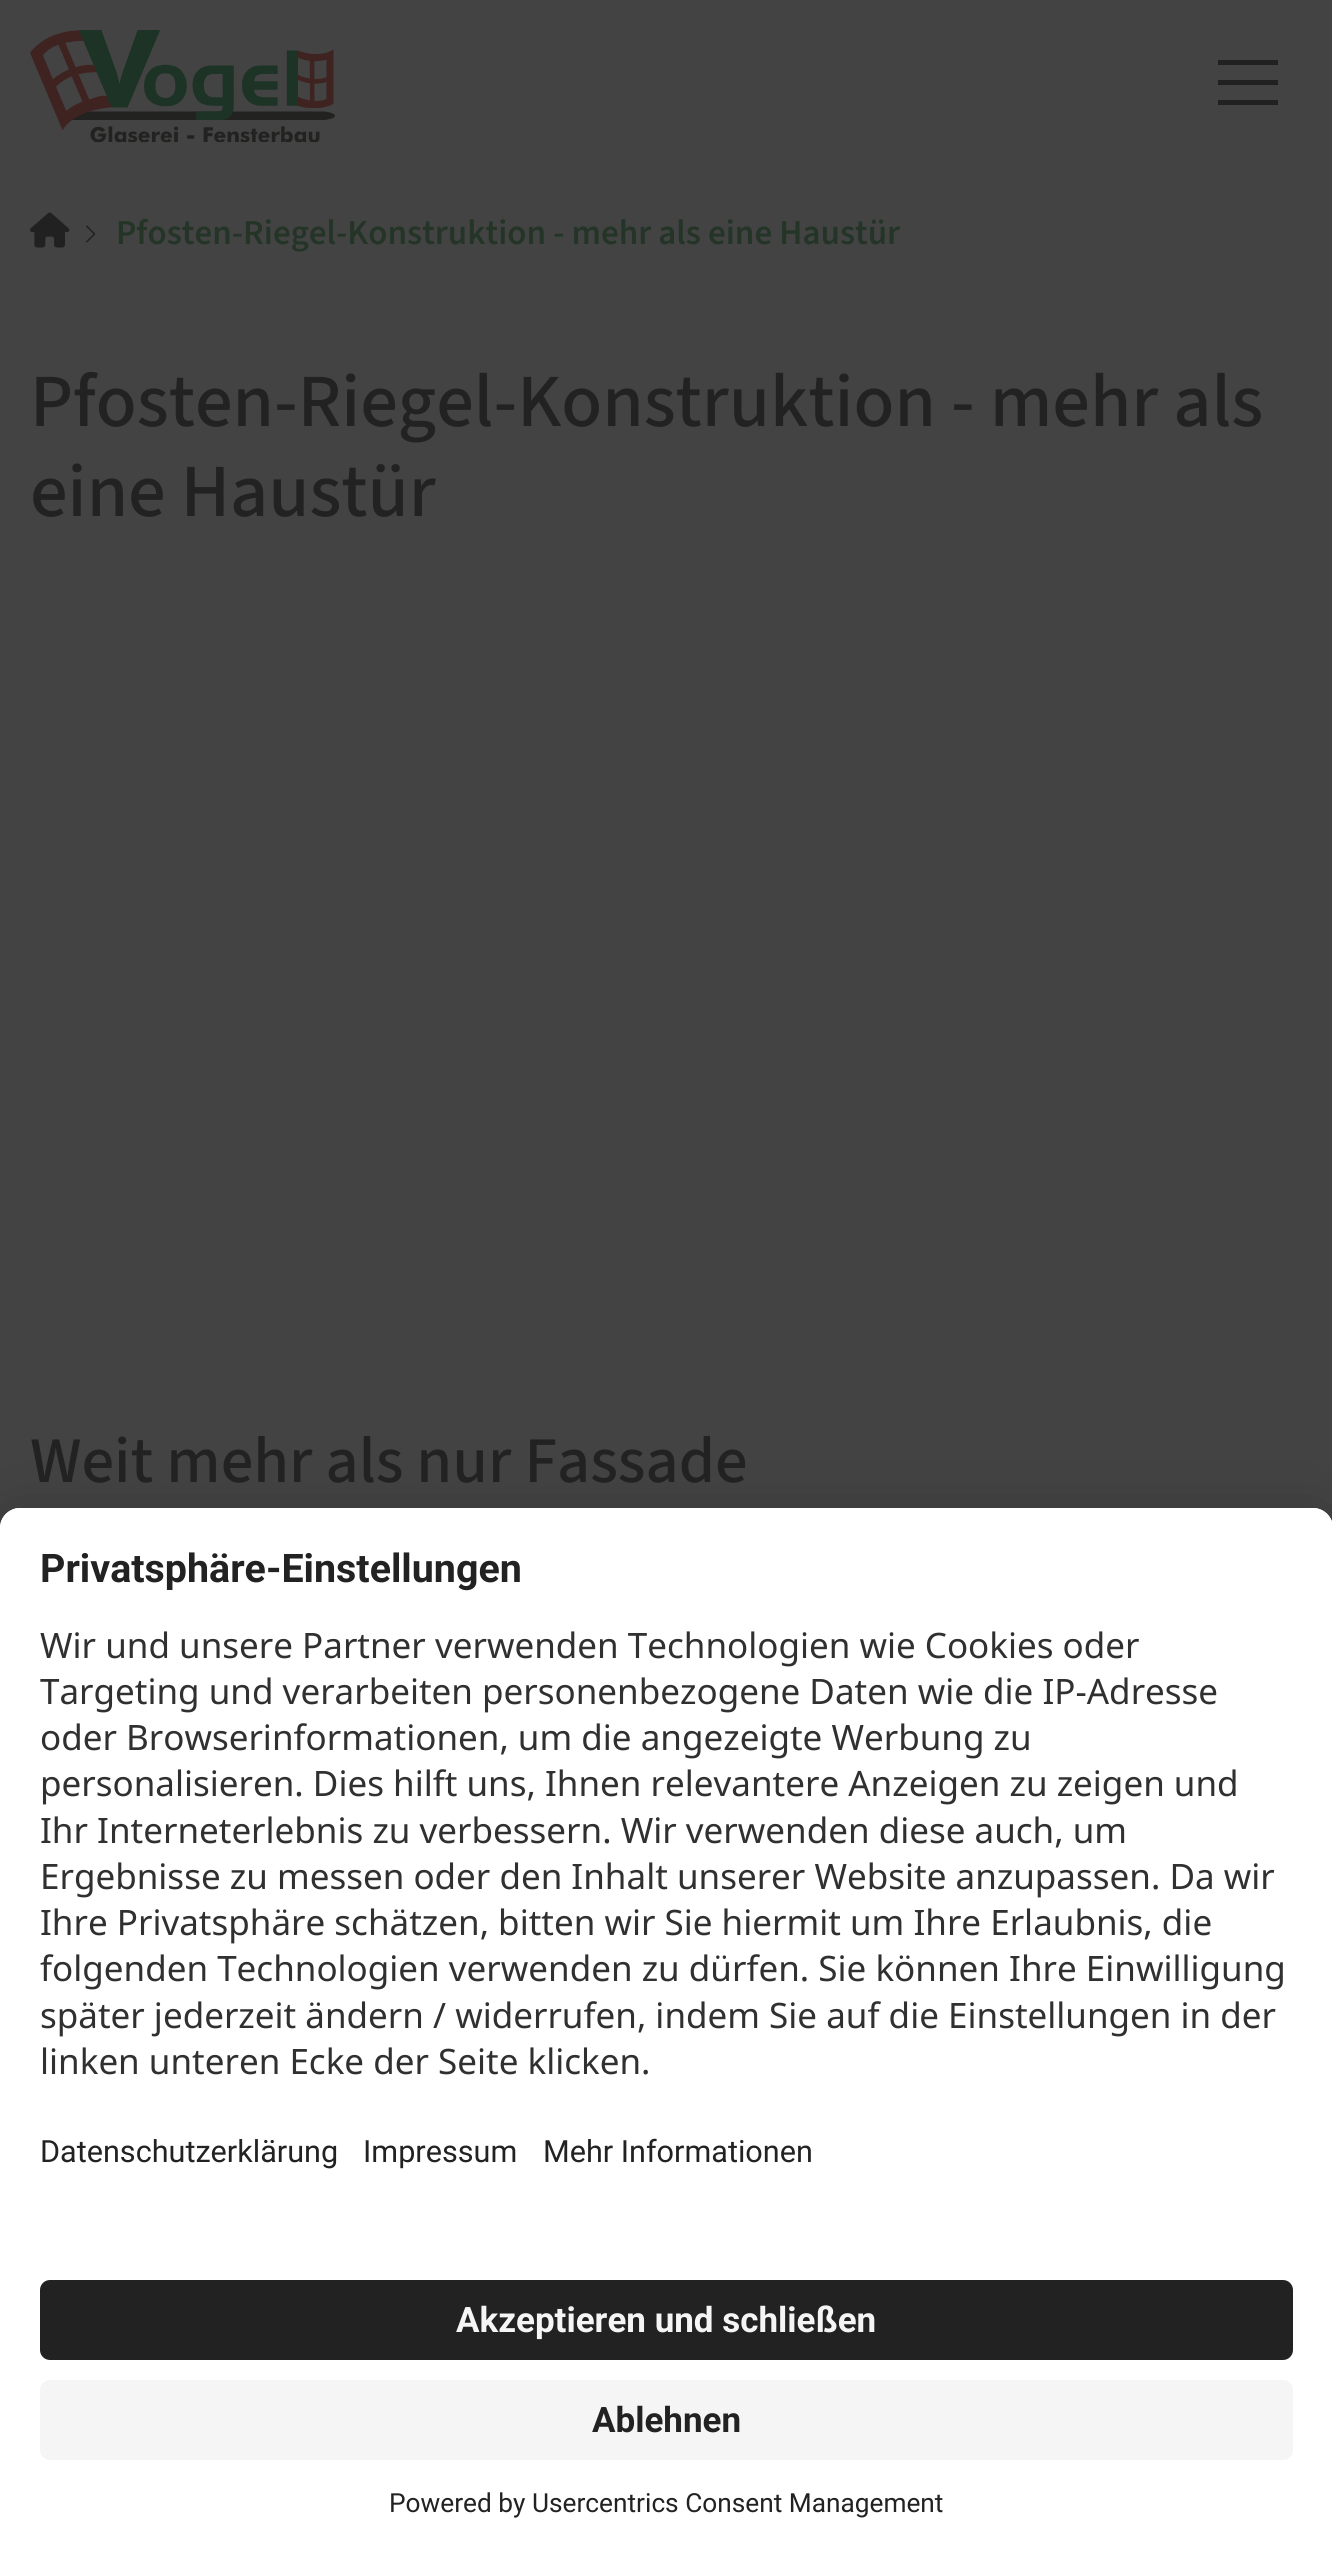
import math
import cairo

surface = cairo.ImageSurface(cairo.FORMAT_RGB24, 1332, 2558)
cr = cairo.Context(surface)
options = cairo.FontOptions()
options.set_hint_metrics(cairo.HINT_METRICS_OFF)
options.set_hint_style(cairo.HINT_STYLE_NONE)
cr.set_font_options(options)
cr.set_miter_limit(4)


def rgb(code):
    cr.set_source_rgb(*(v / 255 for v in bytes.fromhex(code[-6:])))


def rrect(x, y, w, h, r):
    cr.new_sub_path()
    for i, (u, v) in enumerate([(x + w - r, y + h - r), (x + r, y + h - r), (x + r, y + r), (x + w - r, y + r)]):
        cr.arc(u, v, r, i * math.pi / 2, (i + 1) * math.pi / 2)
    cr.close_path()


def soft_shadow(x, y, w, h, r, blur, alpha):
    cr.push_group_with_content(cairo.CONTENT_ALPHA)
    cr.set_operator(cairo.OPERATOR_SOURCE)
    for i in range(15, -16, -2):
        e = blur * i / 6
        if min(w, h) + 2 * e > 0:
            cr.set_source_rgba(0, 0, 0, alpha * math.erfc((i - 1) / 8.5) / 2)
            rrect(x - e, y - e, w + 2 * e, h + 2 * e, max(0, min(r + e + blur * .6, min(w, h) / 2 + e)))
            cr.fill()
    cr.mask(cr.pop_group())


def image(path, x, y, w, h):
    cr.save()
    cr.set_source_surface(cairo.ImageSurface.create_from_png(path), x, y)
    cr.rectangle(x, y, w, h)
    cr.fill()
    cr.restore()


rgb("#434343")
cr.paint()
image("img/1.png", 30, 30, 305, 113)
for x, y, w, h, color in [
    (1218, 60, 60, 5, "#212121"),
    (1218, 80, 60, 5, "#212121"),
    (1218, 100, 60, 5, "#212121"),
]:
    rgb(color)
    cr.rectangle(x, y, w, h)
    cr.fill()
image("img/2.png", 30, 212, 40, 36)
image("img/3.png", 86, 225, 10, 18)
rgb("#000000")
soft_shadow(0, 1520, 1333, 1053, 20, 32.5, 0.22)
rgb("#ffffff")
cr.new_path()
cr.move_to(20, 1508)
cr.line_to(1313, 1508)
cr.curve_to(1324, 1508, 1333, 1517, 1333, 1528)
cr.line_to(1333, 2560)
cr.line_to(0, 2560)
cr.line_to(0, 1528)
cr.curve_to(0, 1517, 9, 1508, 20, 1508)
cr.close_path()
cr.fill()
cr.new_path()
cr.move_to(20, 1508)
cr.line_to(1313, 1508)
cr.curve_to(1324, 1508, 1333, 1517, 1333, 1528)
cr.line_to(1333, 2250)
cr.line_to(0, 2250)
cr.line_to(0, 1528)
cr.curve_to(0, 1517, 9, 1508, 20, 1508)
cr.close_path()
cr.fill()
rgb("#222222")
rrect(40, 2280, 1253, 80, 10)
cr.fill()
rgb("#f5f5f5")
rrect(40, 2380, 1253, 80, 10)
cr.fill()
cr.select_font_face("Source Sans 3 SemiBold")
cr.set_font_size(35)
rgb("#243528")
cr.move_to(116, 244)
cr.show_text("Pfosten-Riegel-Konstruktion - mehr als eine Haustür")
cr.select_font_face("Source Sans 3 Medium")
cr.set_font_size(75)
rgb("#222223")
cr.move_to(30, 426)
cr.show_text("Pfosten-Riegel-Konstruktion - mehr als")
cr.move_to(30, 516)
cr.show_text("eine Haustür")
cr.set_font_size(65)
cr.move_to(30, 1482)
cr.show_text("Weit mehr als nur Fassade")
cr.select_font_face("Roboto", cairo.FONT_SLANT_NORMAL, cairo.FONT_WEIGHT_BOLD)
cr.set_font_size(39.4)
cr.move_to(40, 1582)
cr.show_text("Privatsphäre-Einstellungen")
cr.select_font_face("Noto Sans")
cr.set_font_size(35)
rgb("#303030")
for x, y, s in [
    (40, 1658, "Wir und unsere Partner verwenden Technologien wie Cookies oder"),
    (40, 1704, "Targeting und verarbeiten personenbezogene Daten wie die IP-Adresse"),
    (40, 1750, "oder Browserinformationen, um die angezeigte Werbung zu"),
    (40, 1796, "personalisieren. Dies hilft uns, Ihnen relevantere Anzeigen zu zeigen und"),
    (40, 1843, "Ihr Interneterlebnis zu verbessern. Wir verwenden diese auch, um"),
    (40, 1889, "Ergebnisse zu messen oder den Inhalt unserer Website anzupassen. Da wir"),
    (40, 1935, "Ihre Privatsphäre schätzen, bitten wir Sie hiermit um Ihre Erlaubnis, die"),
    (40, 1981, "folgenden Technologien verwenden zu dürfen. Sie können Ihre Einwilligung"),
    (40, 2028, "später jederzeit ändern / widerrufen, indem Sie auf die Einstellungen in der"),
    (40, 2074, "linken unteren Ecke der Seite klicken."),
]:
    cr.move_to(x, y)
    cr.show_text(s)
cr.select_font_face("Roboto")
cr.set_font_size(30.6)
rgb("#222223")
for x, y, s in [
    (40, 2162, "Datenschutzerklärung"),
    (363, 2162, "Impressum"),
    (543, 2162, "Mehr Informationen"),
]:
    cr.move_to(x, y)
    cr.show_text(s)
cr.select_font_face("Roboto", cairo.FONT_SLANT_NORMAL, cairo.FONT_WEIGHT_BOLD)
cr.set_font_size(35)
rgb("#f5f5f5")
cr.move_to(456, 2332)
cr.show_text("Akzeptieren und schließen")
rgb("#222223")
cr.move_to(592, 2432)
cr.show_text("Ablehnen")
cr.select_font_face("Roboto")
cr.set_font_size(26.25)
cr.move_to(389, 2512)
cr.show_text("Powered by Usercentrics Consent Management")
surface.write_to_png("page.png")
